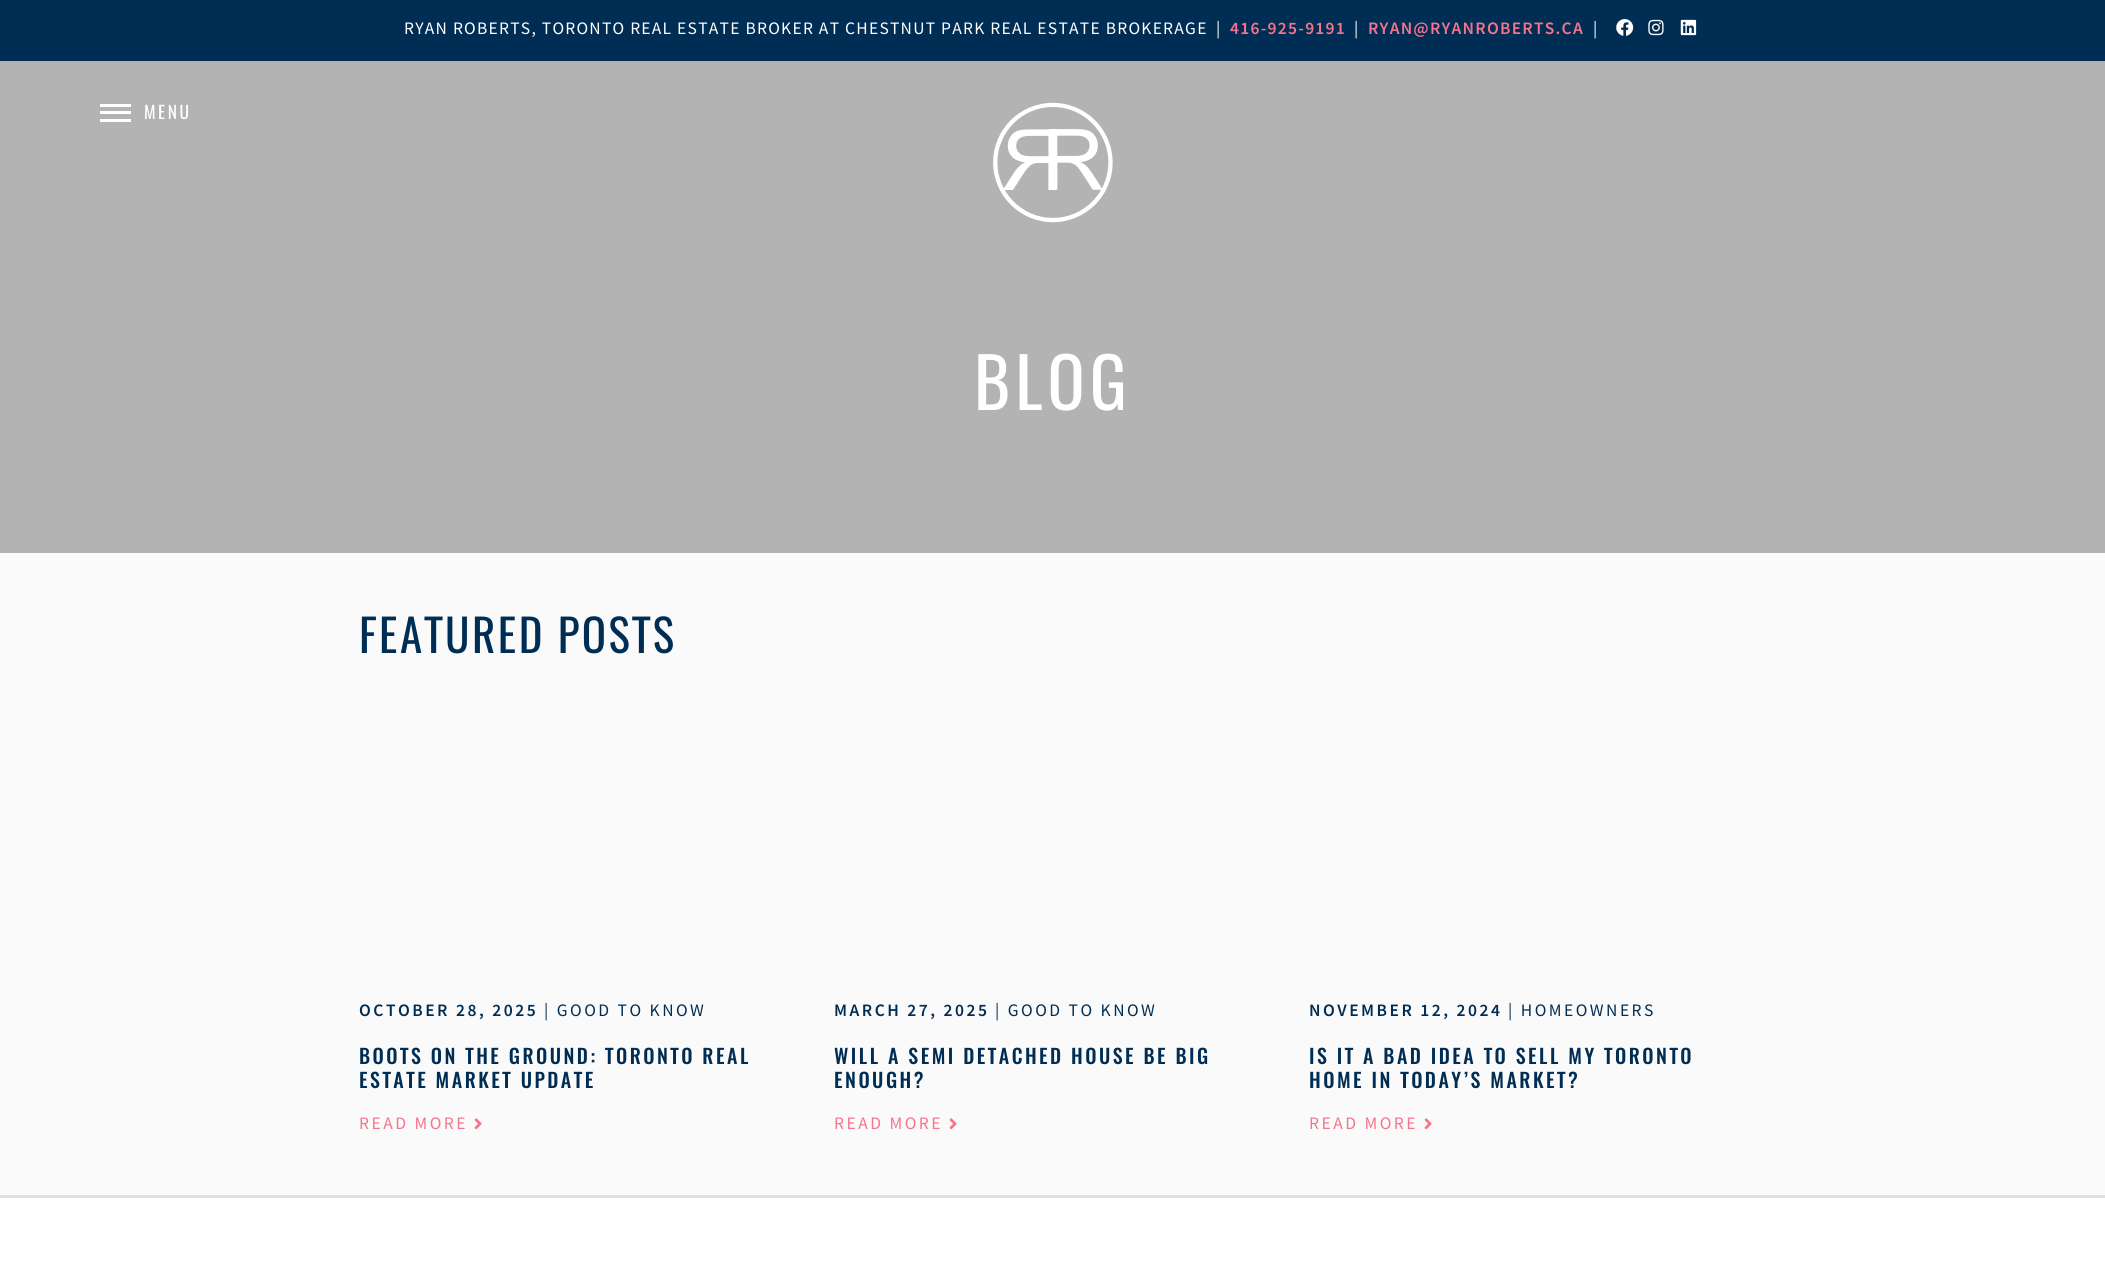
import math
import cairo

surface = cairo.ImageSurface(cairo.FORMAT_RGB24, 2105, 1273)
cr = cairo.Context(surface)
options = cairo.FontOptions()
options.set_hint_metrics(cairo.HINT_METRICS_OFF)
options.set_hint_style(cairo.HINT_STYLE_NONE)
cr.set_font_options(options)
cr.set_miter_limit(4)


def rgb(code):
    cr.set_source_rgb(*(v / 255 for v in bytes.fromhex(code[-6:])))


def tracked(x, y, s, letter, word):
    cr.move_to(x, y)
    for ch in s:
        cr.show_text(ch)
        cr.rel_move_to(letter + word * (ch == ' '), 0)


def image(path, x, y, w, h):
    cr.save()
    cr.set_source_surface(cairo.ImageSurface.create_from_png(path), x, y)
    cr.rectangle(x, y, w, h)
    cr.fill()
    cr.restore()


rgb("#ffffff")
cr.paint()
rgb("#002d53")
cr.rectangle(0, 0, 2105, 61)
cr.fill()
image("img/1.png", 1616, 19, 18, 17)
image("img/2.png", 1648, 19, 16, 17)
image("img/3.png", 1680, 19, 17, 17)
for x, y, w, h, color in [
    (0, 61, 2105, 492, "#b3b3b3"),
    (100, 104, 31, 3, "#ffffff"),
    (100, 111, 31, 3, "#ffffff"),
    (100, 119, 31, 3, "#ffffff"),
]:
    rgb(color)
    cr.rectangle(x, y, w, h)
    cr.fill()
image("img/4.png", 993, 102, 120, 121)
rgb("#fafafa")
cr.rectangle(0, 553, 2105, 642)
cr.fill()
rgb("#e0e0e0")
cr.rectangle(0, 1195, 2105, 3)
cr.fill()
image("img/5.png", 474, 1118, 8, 12)
image("img/5.png", 949, 1118, 8, 12)
image("img/5.png", 1424, 1118, 8, 12)
cr.select_font_face("Source Sans Pro")
cr.set_font_size(17.5)
rgb("#ffffff")
tracked(404, 34, "RYAN ROBERTS, TORONTO REAL ESTATE BROKER AT CHESTNUT PARK REAL ESTATE BROKERAGE", 1.25, 0)
tracked(1216, 34, "|", 1.25, 0)
cr.select_font_face("Source Sans Pro SemiBold")
rgb("#f6738c")
tracked(1230, 34, "416-925-9191", 1.25, 0)
cr.select_font_face("Source Sans Pro")
rgb("#ffffff")
tracked(1354, 34, "|", 1.25, 0)
cr.select_font_face("Source Sans Pro SemiBold")
rgb("#f6738c")
tracked(1368, 34, "RYAN@RYANROBERTS.CA", 1.25, 0)
cr.select_font_face("Source Sans Pro")
rgb("#ffffff")
tracked(1593, 34, "|", 1.25, 0)
cr.select_font_face("Oswald")
tracked(144, 119, "MENU", 2.5, 0)
cr.set_font_size(69)
tracked(974, 410, "BLOG", 5, 0)
cr.set_font_size(45)
rgb("#002d53")
tracked(359, 653, "FEATURED POSTS", 2.5, 0)
cr.select_font_face("Source Sans Pro SemiBold")
cr.set_font_size(17.5)
tracked(359, 1016, "OCTOBER 28, 2025", 2.5, 0)
cr.select_font_face("Source Sans Pro")
tracked(544, 1016, "| GOOD TO KNOW", 2.5, 0)
cr.select_font_face("Oswald Medium")
cr.set_font_size(20)
tracked(359, 1064, "BOOTS ON THE GROUND: TORONTO REAL", 2.5, 0)
tracked(359, 1088, "ESTATE MARKET UPDATE", 2.5, 0)
cr.select_font_face("Source Sans Pro")
cr.set_font_size(17.5)
rgb("#f6738c")
tracked(359, 1129, "READ MORE", 2.5, 0)
cr.select_font_face("Source Sans Pro SemiBold")
rgb("#002d53")
tracked(834, 1016, "MARCH 27, 2025", 2.5, 0)
cr.select_font_face("Source Sans Pro")
tracked(995, 1016, "| GOOD TO KNOW", 2.5, 0)
cr.select_font_face("Oswald Medium")
cr.set_font_size(20)
tracked(834, 1064, "WILL A SEMI DETACHED HOUSE BE BIG", 2.5, 0)
tracked(834, 1088, "ENOUGH?", 2.5, 0)
cr.select_font_face("Source Sans Pro")
cr.set_font_size(17.5)
rgb("#f6738c")
tracked(834, 1129, "READ MORE", 2.5, 0)
cr.select_font_face("Source Sans Pro SemiBold")
rgb("#002d53")
tracked(1309, 1016, "NOVEMBER 12, 2024", 2.5, 0)
cr.select_font_face("Source Sans Pro")
tracked(1508, 1016, "| HOMEOWNERS", 2.5, 0)
cr.select_font_face("Oswald Medium")
cr.set_font_size(20)
tracked(1309, 1064, "IS IT A BAD IDEA TO SELL MY TORONTO", 2.5, 0)
tracked(1309, 1088, "HOME IN TODAY’S MARKET?", 2.5, 0)
cr.select_font_face("Source Sans Pro")
cr.set_font_size(17.5)
rgb("#f6738c")
tracked(1309, 1129, "READ MORE", 2.5, 0)
surface.write_to_png("page.png")
